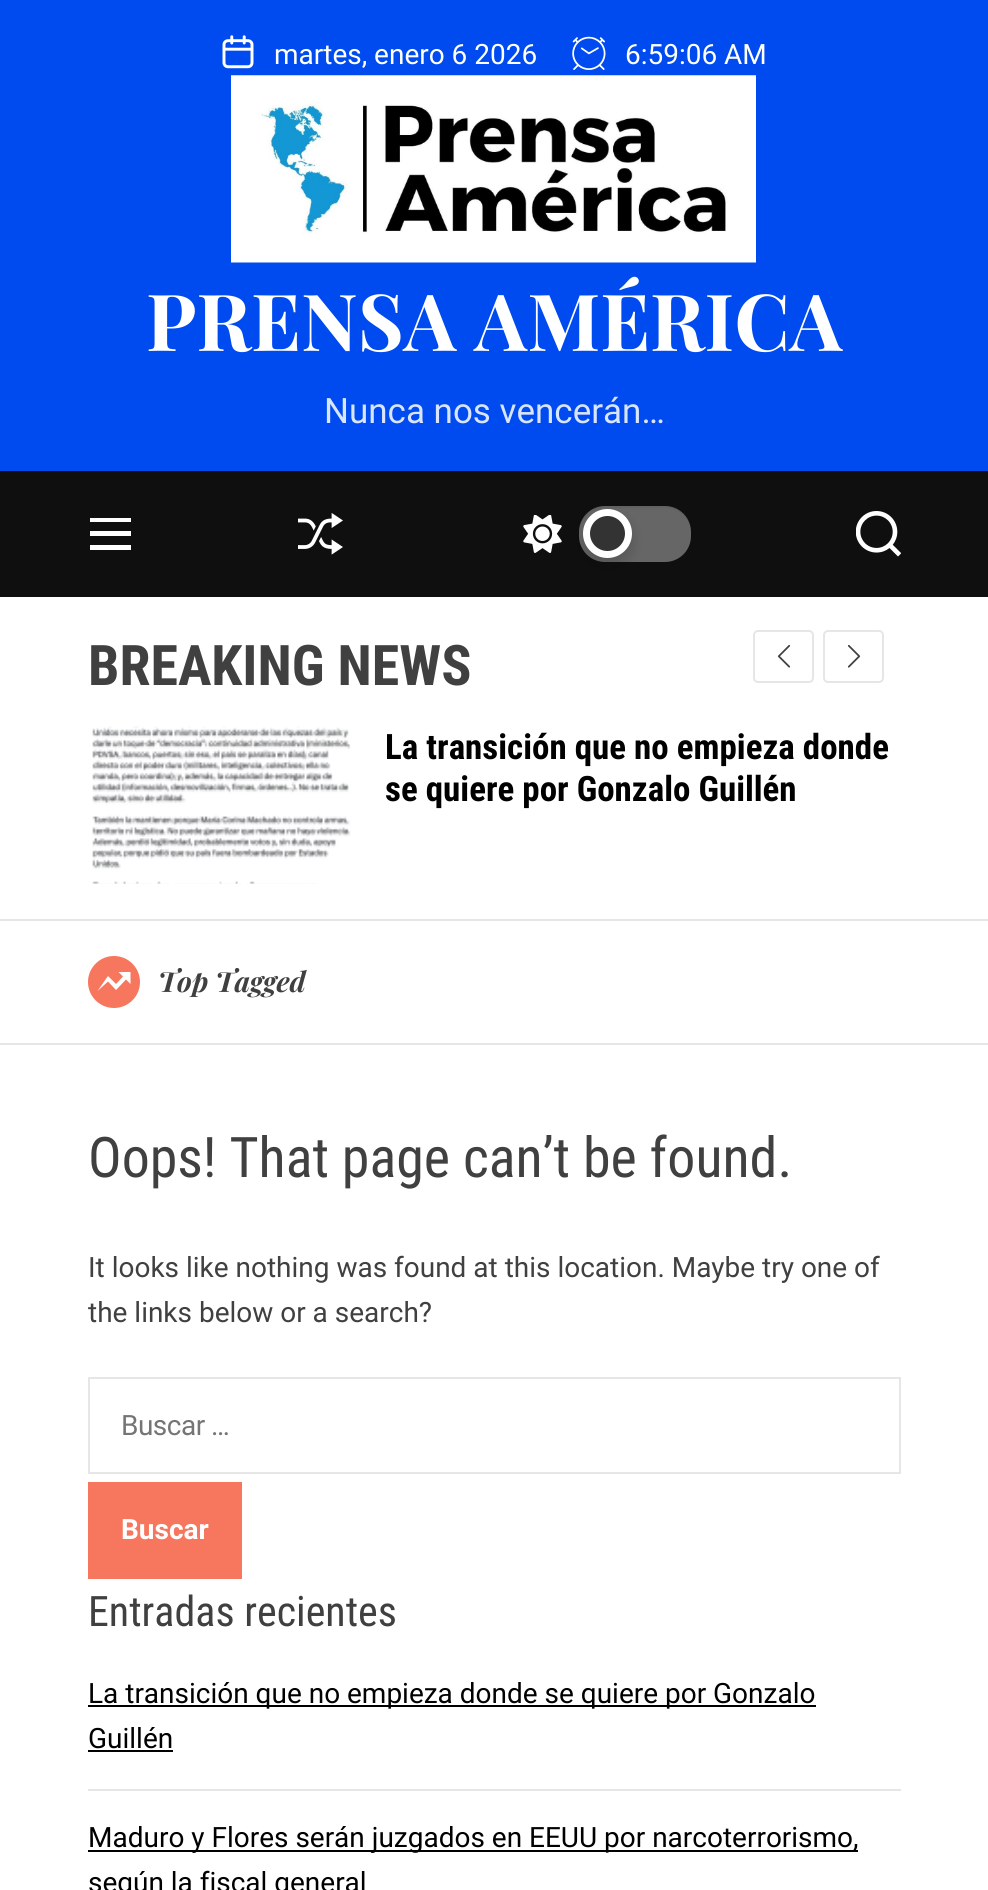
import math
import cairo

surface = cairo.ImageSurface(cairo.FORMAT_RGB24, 988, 1890)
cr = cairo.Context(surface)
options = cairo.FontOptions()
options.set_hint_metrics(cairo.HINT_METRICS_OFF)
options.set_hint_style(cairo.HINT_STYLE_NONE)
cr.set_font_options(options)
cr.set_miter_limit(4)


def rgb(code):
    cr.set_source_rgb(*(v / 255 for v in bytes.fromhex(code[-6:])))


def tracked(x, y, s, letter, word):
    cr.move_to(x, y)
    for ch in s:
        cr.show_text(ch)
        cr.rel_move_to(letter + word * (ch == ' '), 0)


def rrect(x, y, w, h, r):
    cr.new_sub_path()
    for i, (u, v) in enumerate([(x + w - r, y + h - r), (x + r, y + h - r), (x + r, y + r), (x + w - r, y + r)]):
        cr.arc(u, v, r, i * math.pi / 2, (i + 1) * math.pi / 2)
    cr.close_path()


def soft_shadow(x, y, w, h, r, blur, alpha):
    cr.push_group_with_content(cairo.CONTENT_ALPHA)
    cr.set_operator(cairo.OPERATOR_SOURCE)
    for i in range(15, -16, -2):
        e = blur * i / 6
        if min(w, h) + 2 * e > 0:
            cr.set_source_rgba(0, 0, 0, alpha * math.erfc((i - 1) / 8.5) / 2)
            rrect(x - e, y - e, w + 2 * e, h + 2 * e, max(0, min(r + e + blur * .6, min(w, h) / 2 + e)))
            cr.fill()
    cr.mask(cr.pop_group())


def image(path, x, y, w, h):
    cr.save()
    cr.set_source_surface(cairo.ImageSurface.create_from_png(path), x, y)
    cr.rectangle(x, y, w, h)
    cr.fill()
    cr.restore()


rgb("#ffffff")
cr.paint()
rgb("#004bef")
cr.rectangle(0, 0, 988, 471)
cr.fill()
image("img/1.png", 222, 35, 32, 34)
image("img/2.png", 572, 36, 34, 34)
image("img/3.png", 231, 75, 525, 188)
rgb("#0f0f0f")
cr.rectangle(0, 471, 988, 126)
cr.fill()
rgb("#ffffff")
cr.new_path()
cr.move_to(90, 518)
cr.line_to(90, 522)
cr.line_to(131, 522)
cr.line_to(131, 518)
cr.close_path()
cr.move_to(90, 536)
cr.line_to(131, 536)
cr.line_to(131, 531)
cr.line_to(90, 531)
cr.close_path()
cr.move_to(90, 550)
cr.line_to(131, 550)
cr.line_to(131, 545)
cr.line_to(90, 545)
cr.close_path()
cr.fill()
image("img/4.png", 298, 513, 45, 42)
image("img/5.png", 523, 515, 39, 38)
rgb("#666666")
rrect(579, 506, 112, 56, 26)
cr.fill()
cr.set_source_rgba(0, 0, 0, 0.05)
cr.new_path()
cr.move_to(606, 508)
cr.line_to(665, 508)
cr.curve_to(679, 508, 691, 519, 691, 534)
cr.line_to(691, 532)
cr.curve_to(691, 518, 679, 506, 665, 506)
cr.line_to(605, 506)
cr.curve_to(591, 506, 579, 518, 579, 532)
cr.line_to(579, 534)
cr.curve_to(579, 519, 591, 508, 606, 508)
cr.close_path()
cr.fill()
rgb("#000000")
soft_shadow(583, 516, 49, 49, 24.5, 7, 0.16)
rgb("#333333")
cr.arc(607.5, 533.5, 21, 0, 2 * math.pi)
cr.fill_preserve()
rgb("#ffffff")
cr.set_line_width(7)
cr.stroke()
image("img/6.png", 856, 511, 45, 46)
rgb("#e6e6e6")
cr.rectangle(0, 919, 988, 2)
cr.fill()
rrect(754, 631, 59, 51, 4)
cr.set_line_width(2)
cr.stroke()
image("img/7.png", 777, 644, 14, 24)
rrect(824, 631, 59, 51, 4)
cr.stroke()
image("img/8.png", 847, 644, 14, 24)
image("img/9.png", 92, 726, 259, 158)
cr.rectangle(0, 1043, 988, 2)
cr.fill()
rgb("#f7775e")
cr.arc(114, 982, 26, 0, 2 * math.pi)
cr.fill()
rgb("#ffffff")
cr.new_path()
cr.move_to(121, 974.5)
cr.line_to(123, 976.5)
cr.line_to(116, 984)
cr.line_to(108, 976)
cr.line_to(97.5, 991)
cr.line_to(108, 981.5)
cr.line_to(116, 990)
cr.line_to(126, 979.5)
cr.line_to(130.5, 984)
cr.line_to(130.5, 972)
cr.line_to(118.5, 972)
cr.close_path()
cr.fill()
cr.rectangle(89, 1378, 811, 95)
rgb("#e6e6e6")
cr.stroke()
for x, y, w, h, color in [
    (88, 1482, 154, 97, "#f7775e"),
    (88, 1789, 813, 2, "#e6e6e6"),
    (88, 1705, 728, 2, "#000000"),
    (88, 1750, 85, 2, "#000000"),
    (88, 1850, 770, 2, "#000000"),
]:
    rgb(color)
    cr.rectangle(x, y, w, h)
    cr.fill()
cr.select_font_face("Roboto")
cr.set_font_size(28)
rgb("#ffffff")
cr.move_to(274, 64)
cr.show_text("martes, enero 6 2026")
cr.move_to(625, 64)
cr.show_text("6:59:06 AM")
cr.select_font_face("Playfair Display", cairo.FONT_SLANT_NORMAL, cairo.FONT_WEIGHT_BOLD)
cr.set_font_size(78.75)
cr.move_to(146, 351)
cr.show_text("PRENSA AMÉRICA")
cr.select_font_face("Roboto")
cr.set_font_size(35)
rgb("#d9e4fd")
cr.move_to(324, 423)
cr.show_text("Nunca nos vencerán…")
cr.select_font_face("Roboto Condensed", cairo.FONT_SLANT_NORMAL, cairo.FONT_WEIGHT_BOLD)
cr.set_font_size(56)
rgb("#404040")
cr.move_to(88, 685)
cr.show_text("BREAKING NEWS")
cr.set_font_size(35)
rgb("#000000")
cr.move_to(385, 759)
cr.show_text("La transición que no empieza donde")
cr.move_to(385, 801)
cr.show_text("se quiere por Gonzalo Guillén")
cr.select_font_face("Playfair Display", cairo.FONT_SLANT_ITALIC, cairo.FONT_WEIGHT_BOLD)
cr.set_font_size(28)
rgb("#404040")
cr.move_to(158, 992)
cr.show_text("Top Tagged")
cr.select_font_face("Roboto Condensed")
cr.set_font_size(56)
cr.move_to(88, 1177)
cr.show_text("Oops! That page can’t be found.")
cr.select_font_face("Roboto")
cr.set_font_size(28)
cr.move_to(88, 1277)
cr.show_text("It looks like nothing was found at this location. Maybe try one of")
cr.move_to(88, 1322)
cr.show_text("the links below or a search?")
rgb("#757575")
tracked(121, 1435, "Buscar …", -0.5, 0)
cr.select_font_face("Roboto", cairo.FONT_SLANT_NORMAL, cairo.FONT_WEIGHT_BOLD)
rgb("#ffffff")
cr.move_to(121, 1539)
cr.show_text("Buscar")
cr.select_font_face("Roboto Condensed")
cr.set_font_size(42)
rgb("#404040")
cr.move_to(88, 1626)
cr.show_text("Entradas recientes")
cr.select_font_face("Roboto")
cr.set_font_size(28)
rgb("#000000")
for x, y, s in [
    (88, 1703, "La transición que no empieza donde se quiere por Gonzalo"),
    (88, 1748, "Guillén"),
    (88, 1847, "Maduro y Flores serán juzgados en EEUU por narcoterrorismo,"),
    (88, 1892, "según la fiscal general"),
]:
    cr.move_to(x, y)
    cr.show_text(s)
surface.write_to_png("page.png")
